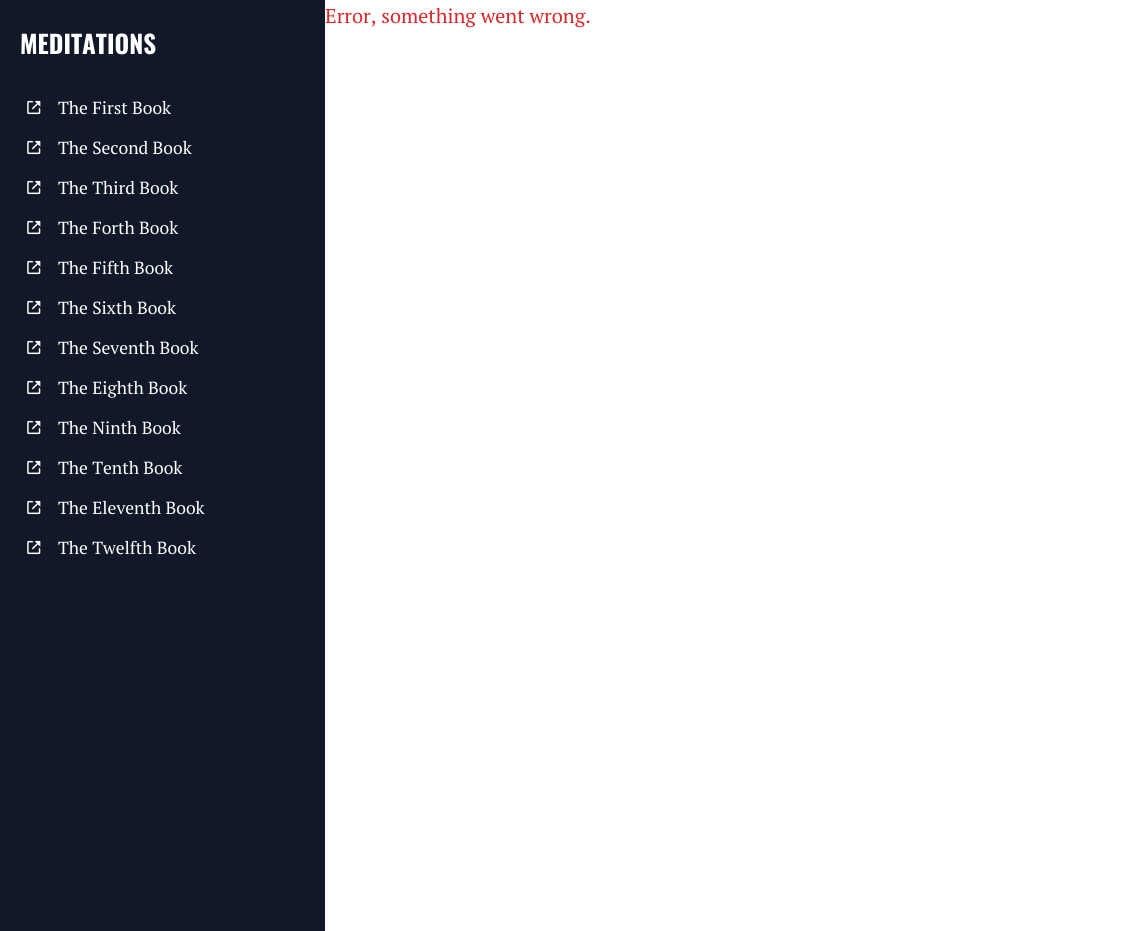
import math
import cairo

surface = cairo.ImageSurface(cairo.FORMAT_RGB24, 1140, 931)
cr = cairo.Context(surface)
options = cairo.FontOptions()
options.set_hint_metrics(cairo.HINT_METRICS_OFF)
options.set_hint_style(cairo.HINT_STYLE_NONE)
cr.set_font_options(options)
cr.set_miter_limit(4)


def rgb(code):
    cr.set_source_rgb(*(v / 255 for v in bytes.fromhex(code[-6:])))


def image(path, x, y, w, h):
    cr.save()
    cr.set_source_surface(cairo.ImageSurface.create_from_png(path), x, y)
    cr.rectangle(x, y, w, h)
    cr.fill()
    cr.restore()


rgb("#ffffff")
cr.paint()
rgb("#111827")
cr.rectangle(0, 0, 325, 931)
cr.fill()
image("img/1.png", 27, 100, 14, 15)
image("img/1.png", 27, 140, 14, 15)
image("img/1.png", 27, 180, 14, 15)
image("img/1.png", 27, 220, 14, 15)
image("img/1.png", 27, 260, 14, 15)
image("img/1.png", 27, 300, 14, 15)
image("img/1.png", 27, 340, 14, 15)
image("img/1.png", 27, 380, 14, 15)
image("img/1.png", 27, 420, 14, 15)
image("img/1.png", 27, 460, 14, 15)
image("img/1.png", 27, 500, 14, 15)
image("img/1.png", 27, 540, 14, 15)
cr.select_font_face("PT Serif")
cr.set_font_size(20)
rgb("#dc2626")
cr.move_to(325, 23)
cr.show_text("Error, something went wrong.")
cr.select_font_face("Oswald", cairo.FONT_SLANT_NORMAL, cairo.FONT_WEIGHT_BOLD)
cr.set_font_size(25)
rgb("#ffffff")
cr.move_to(20, 54)
cr.show_text("MEDITATIONS")
cr.select_font_face("PT Serif")
cr.set_font_size(17.5)
for x, y, s in [
    (58, 114, "The First Book"),
    (58, 154, "The Second Book"),
    (58, 194, "The Third Book"),
    (58, 234, "The Forth Book"),
    (58, 274, "The Fifth Book"),
    (58, 314, "The Sixth Book"),
    (58, 354, "The Seventh Book"),
    (58, 394, "The Eighth Book"),
    (58, 434, "The Ninth Book"),
    (58, 474, "The Tenth Book"),
    (58, 514, "The Eleventh Book"),
    (58, 554, "The Twelfth Book"),
]:
    cr.move_to(x, y)
    cr.show_text(s)
surface.write_to_png("page.png")
